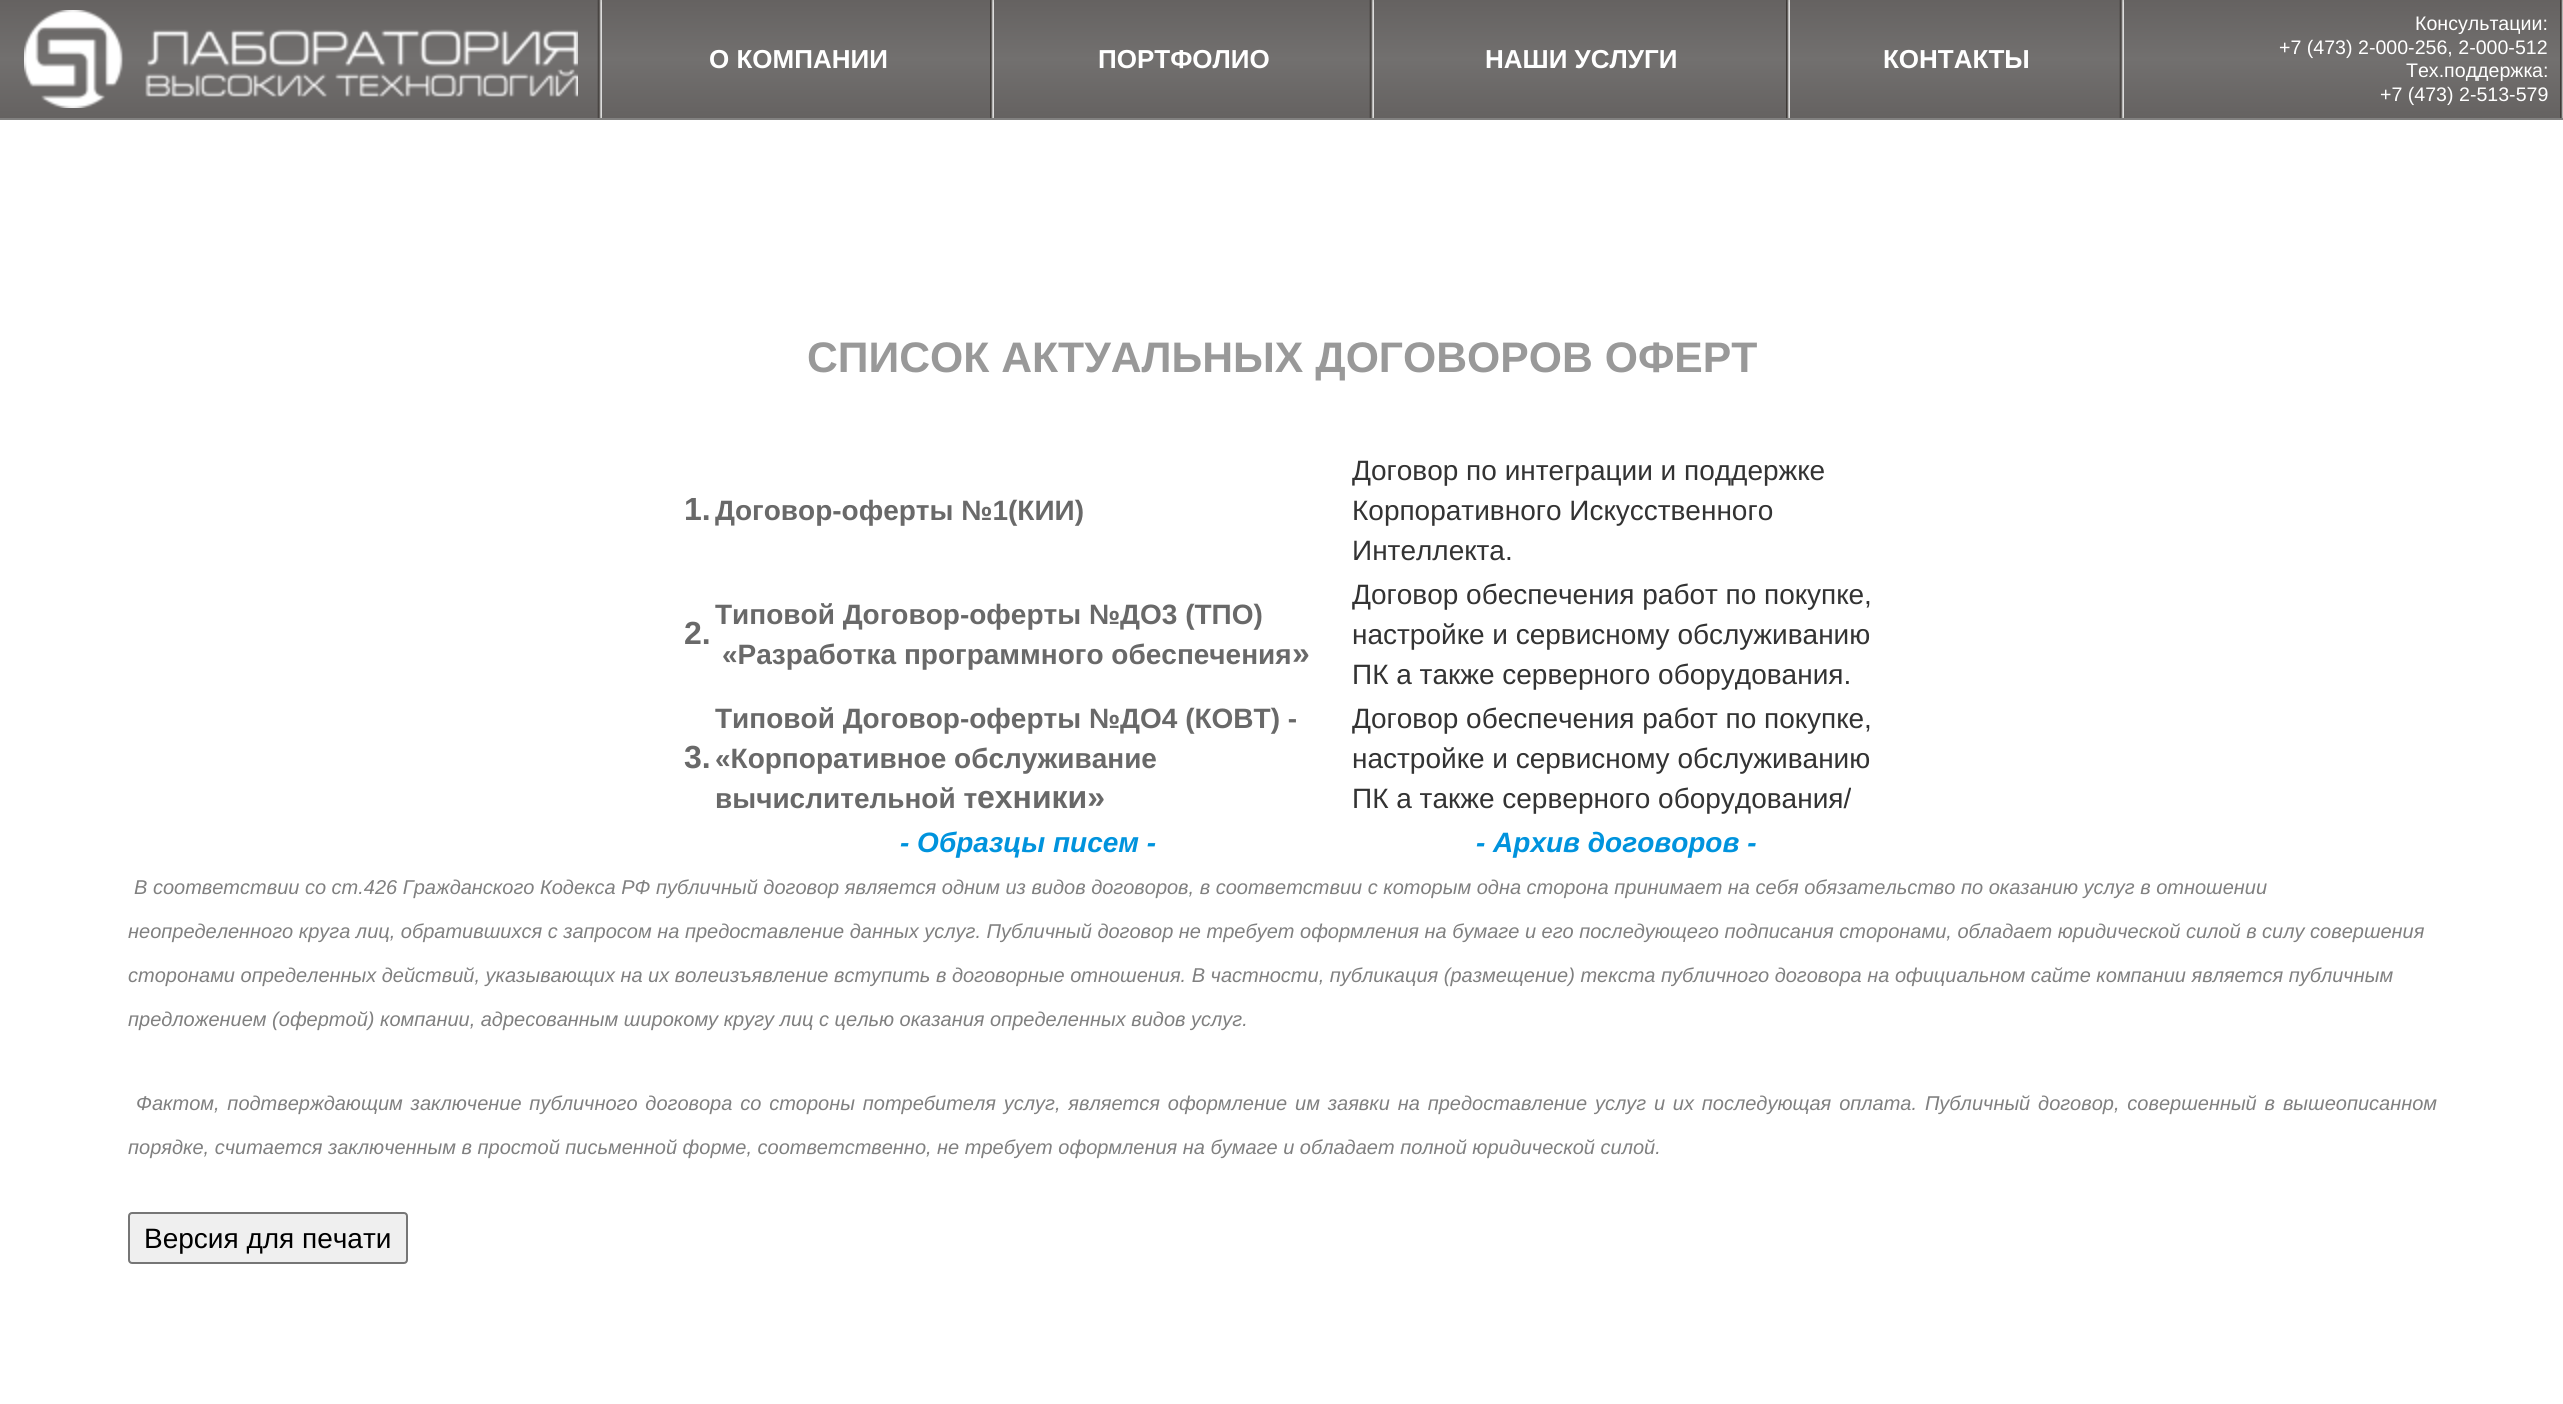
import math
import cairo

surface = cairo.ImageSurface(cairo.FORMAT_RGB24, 2563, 1404)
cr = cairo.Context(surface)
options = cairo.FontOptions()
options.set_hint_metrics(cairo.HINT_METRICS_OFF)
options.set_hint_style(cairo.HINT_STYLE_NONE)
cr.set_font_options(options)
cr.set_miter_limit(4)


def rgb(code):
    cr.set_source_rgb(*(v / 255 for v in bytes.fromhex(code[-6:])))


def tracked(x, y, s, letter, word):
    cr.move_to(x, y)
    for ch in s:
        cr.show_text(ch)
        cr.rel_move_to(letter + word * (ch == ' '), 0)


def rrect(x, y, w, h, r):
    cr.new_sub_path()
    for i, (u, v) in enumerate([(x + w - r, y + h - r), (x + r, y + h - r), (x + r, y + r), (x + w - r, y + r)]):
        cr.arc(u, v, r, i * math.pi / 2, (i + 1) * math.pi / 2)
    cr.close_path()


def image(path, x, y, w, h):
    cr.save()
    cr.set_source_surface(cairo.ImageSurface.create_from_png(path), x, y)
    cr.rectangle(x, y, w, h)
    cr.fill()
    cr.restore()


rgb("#ffffff")
cr.paint()
gradient = cairo.LinearGradient(1282, 0, 1282, 118)
gradient.add_color_stop_rgba(0, 0.396, 0.384, 0.38, 1)
gradient.add_color_stop_rgba(0.5, 0.447, 0.439, 0.435, 1)
gradient.add_color_stop_rgba(1, 0.396, 0.384, 0.38, 1)
cr.set_source(gradient)
cr.rectangle(0, 0, 2563, 118)
cr.fill()
rgb("#828180")
cr.rectangle(0, 118, 2563, 2)
cr.fill()
image("img/1.png", 597, 0, 5, 118)
image("img/2.png", 24, 10, 554, 98)
image("img/3.png", 990, 0, 4, 118)
image("img/1.png", 1369, 0, 5, 118)
image("img/3.png", 1786, 0, 4, 118)
image("img/1.png", 2119, 0, 5, 118)
image("img/4.png", 2560, 0, 3, 118)
rgb("#efefef")
rrect(129, 1213, 278, 50, 3)
cr.fill_preserve()
rgb("#767676")
cr.stroke()
cr.select_font_face("Liberation Sans", cairo.FONT_SLANT_NORMAL, cairo.FONT_WEIGHT_BOLD)
cr.set_font_size(26)
rgb("#ffffff")
for x, y, s in [
    (709, 68, "О КОМПАНИИ"),
    (1098, 68, "ПОРТФОЛИО"),
    (1485, 68, "НАШИ УСЛУГИ"),
    (1883, 68, "КОНТАКТЫ"),
]:
    cr.move_to(x, y)
    cr.show_text(s)
cr.select_font_face("Liberation Sans")
cr.set_font_size(19.6)
for x, y, s in [
    (2415, 30, "Консультации:"),
    (2279, 54, "+7 (473) 2-000-256, 2-000-512"),
    (2406, 77, "Тех.поддержка:"),
    (2380, 101, "+7 (473) 2-513-579"),
]:
    cr.move_to(x, y)
    cr.show_text(s)
cr.select_font_face("Liberation Sans", cairo.FONT_SLANT_NORMAL, cairo.FONT_WEIGHT_BOLD)
cr.set_font_size(42.7)
rgb("#999999")
cr.move_to(807, 372)
cr.show_text("СПИСОК АКТУАЛЬНЫХ ДОГОВОРОВ ОФЕРТ")
cr.set_font_size(32)
rgb("#696969")
cr.move_to(684, 520)
cr.show_text("1.")
cr.set_font_size(28)
cr.move_to(715, 520)
cr.show_text("Договор-оферты №1(КИИ)")
cr.select_font_face("Liberation Sans")
rgb("#333333")
for x, y, s in [
    (1352, 480, "Договор по интеграции и поддержке"),
    (1352, 520, "Корпоративного Искусственного"),
    (1352, 560, "Интеллекта."),
]:
    cr.move_to(x, y)
    cr.show_text(s)
cr.select_font_face("Liberation Sans", cairo.FONT_SLANT_NORMAL, cairo.FONT_WEIGHT_BOLD)
cr.set_font_size(32)
rgb("#696969")
cr.move_to(684, 644)
cr.show_text("2.")
cr.set_font_size(28)
cr.move_to(715, 624)
cr.show_text("Типовой Договор-оферты №ДО3 (ТПО)")
cr.move_to(722, 664)
cr.show_text("«Разработка программного обеспечения")
cr.set_font_size(32)
cr.move_to(1292, 664)
cr.show_text("»")
cr.select_font_face("Liberation Sans")
cr.set_font_size(28)
rgb("#333333")
for x, y, s in [
    (1352, 604, "Договор обеспечения работ по покупке,"),
    (1352, 644, "настройке и сервисному обслуживанию"),
    (1352, 684, "ПК а также серверного оборудования."),
]:
    cr.move_to(x, y)
    cr.show_text(s)
cr.select_font_face("Liberation Sans", cairo.FONT_SLANT_NORMAL, cairo.FONT_WEIGHT_BOLD)
cr.set_font_size(32)
rgb("#696969")
cr.move_to(684, 768)
cr.show_text("3.")
cr.set_font_size(28)
for x, y, s in [
    (715, 728, "Типовой Договор-оферты №ДО4 (КОВТ) -"),
    (715, 768, "«Корпоративное обслуживание"),
    (715, 808, "вычислительной т"),
]:
    cr.move_to(x, y)
    cr.show_text(s)
cr.set_font_size(32)
cr.move_to(977, 808)
cr.show_text("ехники»")
cr.select_font_face("Liberation Sans")
cr.set_font_size(28)
rgb("#333333")
for x, y, s in [
    (1352, 728, "Договор обеспечения работ по покупке,"),
    (1352, 768, "настройке и сервисному обслуживанию"),
    (1352, 808, "ПК а также серверного оборудования/"),
]:
    cr.move_to(x, y)
    cr.show_text(s)
cr.select_font_face("Liberation Sans", cairo.FONT_SLANT_ITALIC, cairo.FONT_WEIGHT_BOLD)
rgb("#0093dd")
cr.move_to(900, 852)
cr.show_text("- Образцы писем -")
cr.move_to(1476, 852)
cr.show_text("- Архив договоров -")
cr.select_font_face("Liberation Sans", cairo.FONT_SLANT_ITALIC)
cr.set_font_size(20)
rgb("#808080")
for x, y, s in [
    (134, 894, "В соответствии со ст.426 Гражданского Кодекса РФ публичный договор является одним из видов договоров, в соответствии с которым одна сторона принимает на себя обязательство по оказанию услуг в отношении"),
    (128, 938, "неопределенного круга лиц, обратившихся с запросом на предоставление данных услуг. Публичный договор не требует оформления на бумаге и его последующего подписания сторонами, обладает юридической силой в силу совершения"),
    (128, 982, "сторонами определенных действий, указывающих на их волеизъявление вступить в договорные отношения. В частности, публикация (размещение) текста публичного договора на официальном сайте компании является публичным"),
    (128, 1026, "предложением (офертой) компании, адресованным широкому кругу лиц с целью оказания определенных видов услуг."),
]:
    cr.move_to(x, y)
    cr.show_text(s)
tracked(136, 1110, "Фактом, подтверждающим заключение публичного договора со стороны потребителя услуг, является оформление им заявки на предоставление услуг и их последующая оплата. Публичный договор, совершенный в вышеописанном", 0, 2.3)
cr.move_to(128, 1154)
cr.show_text("порядке, считается заключенным в простой письменной форме, соответственно, не требует оформления на бумаге и обладает полной юридической силой.")
cr.select_font_face("Liberation Sans")
cr.set_font_size(28)
rgb("#000000")
cr.move_to(144, 1248)
cr.show_text("Версия для печати")
surface.write_to_png("page.png")
